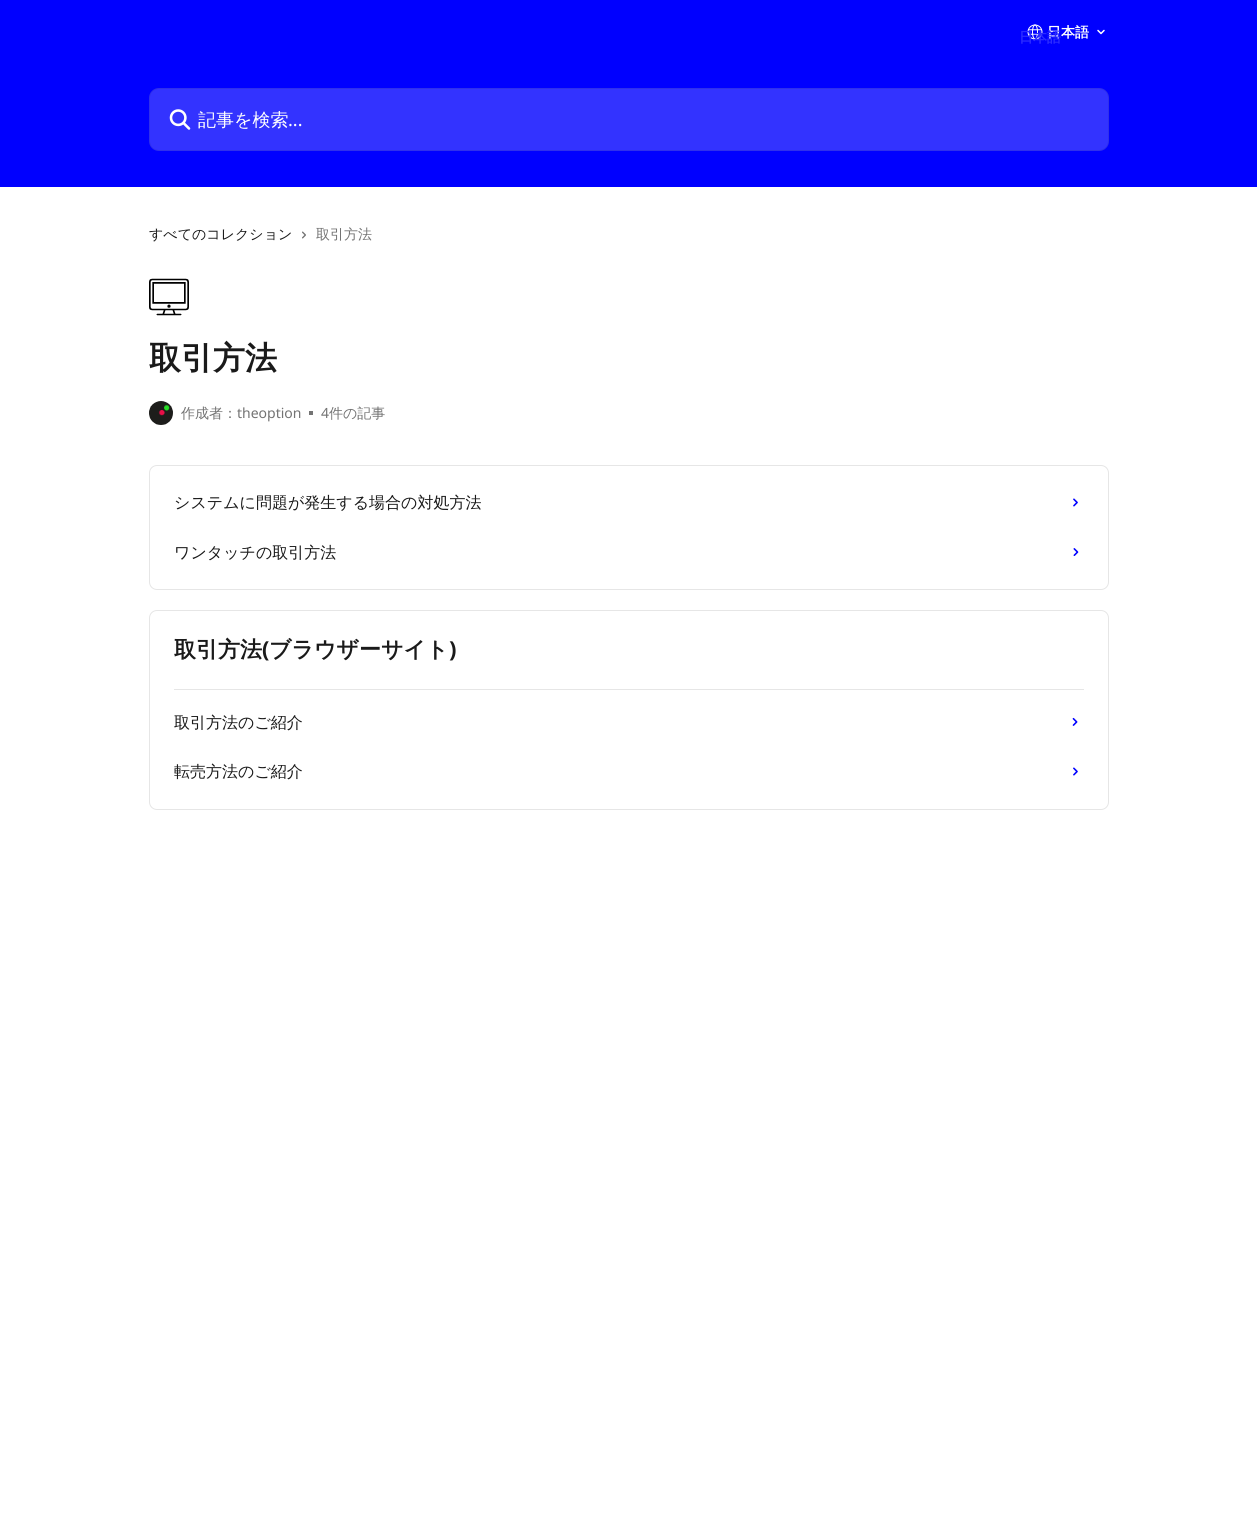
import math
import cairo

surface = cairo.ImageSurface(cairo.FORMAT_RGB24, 1257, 1520)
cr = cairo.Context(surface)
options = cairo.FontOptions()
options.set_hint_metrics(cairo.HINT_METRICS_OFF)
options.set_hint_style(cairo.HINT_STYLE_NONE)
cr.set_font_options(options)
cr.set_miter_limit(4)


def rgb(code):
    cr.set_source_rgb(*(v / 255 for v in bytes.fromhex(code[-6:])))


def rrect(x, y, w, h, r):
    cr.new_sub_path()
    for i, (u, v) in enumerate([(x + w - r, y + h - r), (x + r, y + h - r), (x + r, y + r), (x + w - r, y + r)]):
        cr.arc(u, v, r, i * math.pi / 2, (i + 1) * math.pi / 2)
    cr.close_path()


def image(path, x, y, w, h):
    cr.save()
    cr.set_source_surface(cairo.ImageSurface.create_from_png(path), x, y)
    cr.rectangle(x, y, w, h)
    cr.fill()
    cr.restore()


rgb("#ffffff")
cr.paint()
rgb("#0000ff")
cr.rectangle(0, 0, 1257, 187)
cr.fill()
image("img/1.png", 1027, 24, 16, 16)
cr.new_path()
cr.move_to(1098, 30.5)
cr.line_to(1101, 33.5)
cr.line_to(1104, 30.5)
rgb("#ffffff")
cr.set_line_width(1.5)
cr.set_line_cap(cairo.LINE_CAP_ROUND)
cr.set_line_join(cairo.LINE_JOIN_ROUND)
cr.stroke()
cr.set_source_rgba(1, 1, 1, 0.2)
rrect(149, 88, 960, 63, 10)
cr.fill()
rrect(149.5, 88.5, 959, 62, 9.5)
cr.set_source_rgba(0, 0, 0, 0.08)
cr.set_line_width(1)
cr.set_line_cap(cairo.LINE_CAP_BUTT)
cr.set_line_join(cairo.LINE_JOIN_MITER)
cr.stroke()
image("img/2.png", 169, 109, 22, 21)
image("img/3.png", 302, 231, 4, 8)
image("img/4.png", 149, 278, 40, 38)
image("img/5.png", 149, 401, 24, 24)
rgb("#737373")
cr.rectangle(309, 411, 4, 4)
cr.fill()
rrect(149.5, 465.5, 959, 124, 7.5)
rgb("#e6e6e6")
cr.stroke()
image("img/6.png", 1073, 498, 5, 9)
image("img/7.png", 1073, 548, 6, 8)
rrect(149.5, 610.5, 959, 199, 7.5)
cr.stroke()
cr.rectangle(174, 689, 910, 1)
cr.fill()
image("img/8.png", 1072, 717, 6, 9)
image("img/9.png", 1073, 767, 5, 9)
cr.select_font_face("WenQuanYi Zen Hei", cairo.FONT_SLANT_NORMAL, cairo.FONT_WEIGHT_BOLD)
cr.set_font_size(14)
rgb("#ffffff")
cr.move_to(1047, 37)
cr.show_text("日本語")
rgb("#2c2cff")
cr.move_to(1019, 42)
cr.show_text("日本語")
cr.select_font_face("WenQuanYi Zen Hei Medium")
cr.set_font_size(18)
rgb("#ffffff")
cr.move_to(198, 126)
cr.show_text("記事を検索")
cr.select_font_face("Noto Sans")
cr.move_to(288, 126)
cr.show_text("...")
cr.select_font_face("WenQuanYi Zen Hei Medium")
cr.set_font_size(14)
rgb("#1a1a1a")
cr.move_to(149, 239)
cr.show_text("すべてのコレクション")
rgb("#737373")
cr.move_to(316, 239)
cr.show_text("取引方法")
cr.select_font_face("WenQuanYi Zen Hei", cairo.FONT_SLANT_NORMAL, cairo.FONT_WEIGHT_BOLD)
cr.set_font_size(32)
rgb("#1a1a1a")
cr.move_to(149, 369)
cr.show_text("取引方法")
cr.select_font_face("WenQuanYi Zen Hei Medium")
cr.set_font_size(14)
rgb("#737373")
cr.move_to(181, 418)
cr.show_text("作成者：")
cr.select_font_face("Noto Sans")
cr.move_to(237, 418)
cr.show_text("theoption")
cr.move_to(321, 418)
cr.show_text("4")
cr.select_font_face("WenQuanYi Zen Hei Medium")
cr.move_to(329, 418)
cr.show_text("件の記事")
cr.set_font_size(16)
rgb("#1a1a1a")
cr.move_to(174, 508)
cr.show_text("システムに問題が発生する場合の対処方法")
cr.move_to(174, 558)
cr.show_text("ワンタッチの取引方法")
cr.select_font_face("WenQuanYi Zen Hei", cairo.FONT_SLANT_NORMAL, cairo.FONT_WEIGHT_BOLD)
cr.set_font_size(22)
cr.move_to(174, 657)
cr.show_text("取引方法")
cr.select_font_face("Noto Sans", cairo.FONT_SLANT_NORMAL, cairo.FONT_WEIGHT_BOLD)
cr.move_to(262, 657)
cr.show_text("(")
cr.select_font_face("WenQuanYi Zen Hei", cairo.FONT_SLANT_NORMAL, cairo.FONT_WEIGHT_BOLD)
cr.move_to(269, 657)
cr.show_text("ブラウザーサイト")
cr.select_font_face("Noto Sans", cairo.FONT_SLANT_NORMAL, cairo.FONT_WEIGHT_BOLD)
cr.move_to(449, 657)
cr.show_text(")")
cr.select_font_face("WenQuanYi Zen Hei Medium")
cr.set_font_size(16)
cr.move_to(174, 728)
cr.show_text("取引方法のご紹介")
cr.move_to(174, 777)
cr.show_text("転売方法のご紹介")
surface.write_to_png("page.png")
